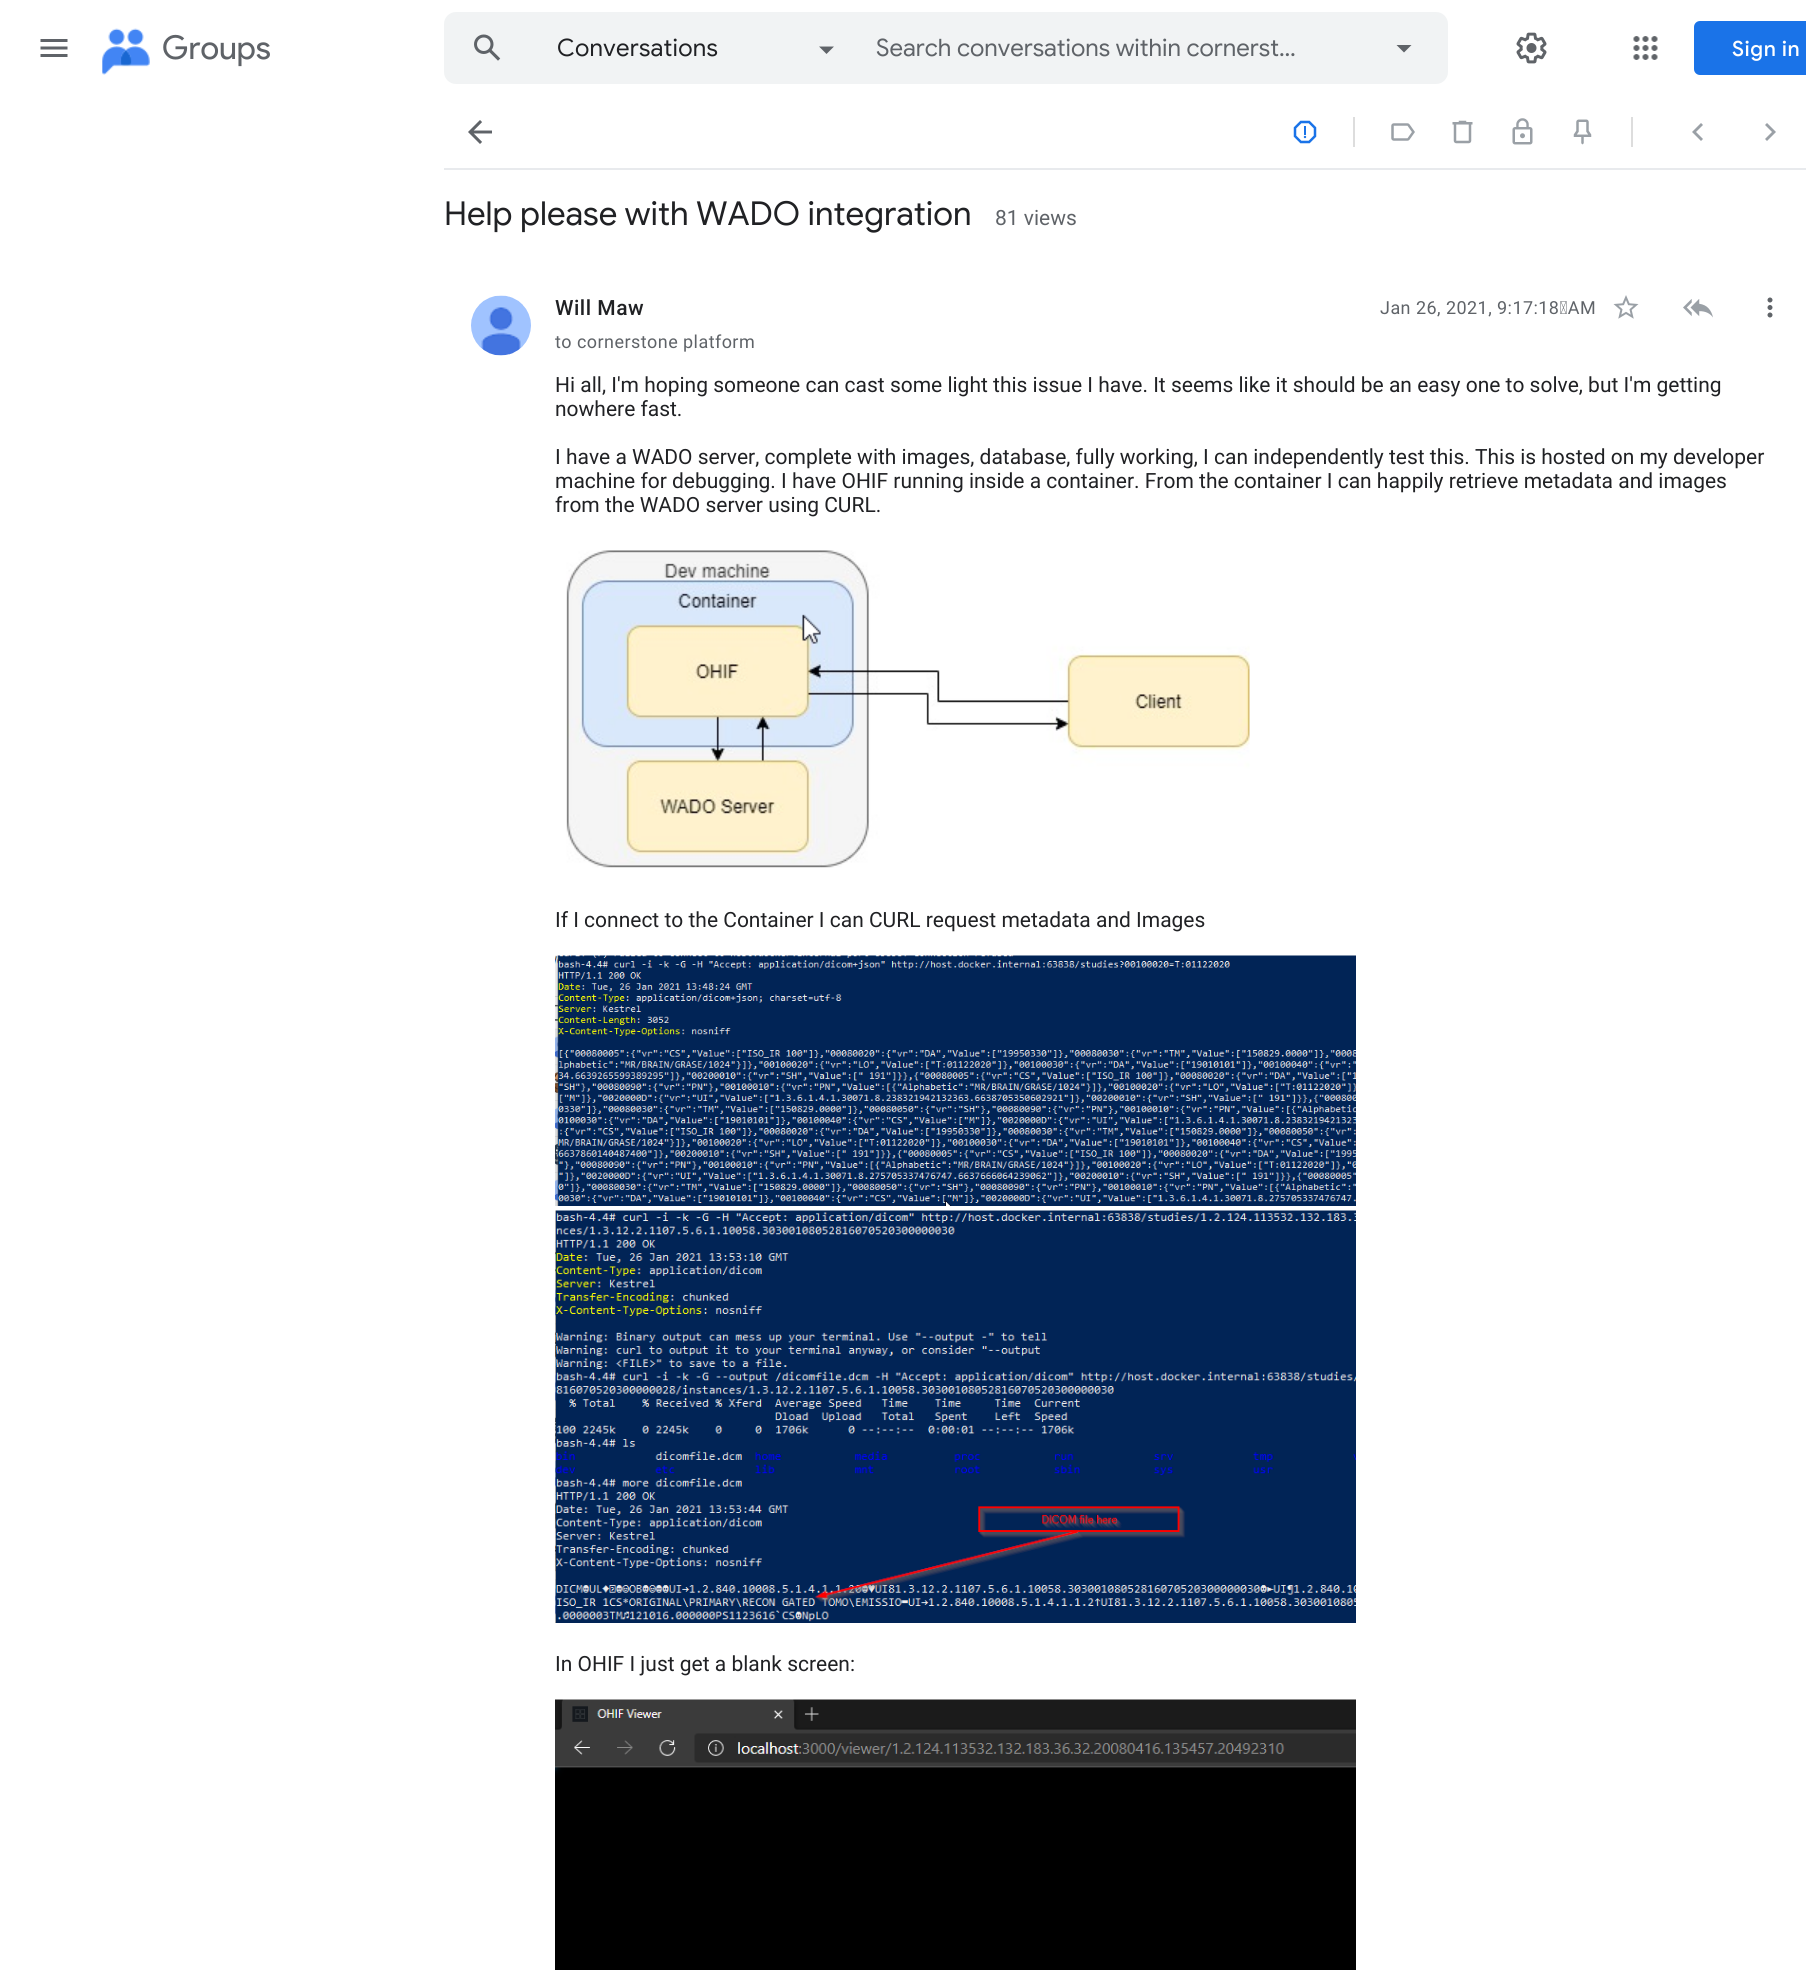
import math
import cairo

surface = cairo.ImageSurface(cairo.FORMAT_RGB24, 1806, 1970)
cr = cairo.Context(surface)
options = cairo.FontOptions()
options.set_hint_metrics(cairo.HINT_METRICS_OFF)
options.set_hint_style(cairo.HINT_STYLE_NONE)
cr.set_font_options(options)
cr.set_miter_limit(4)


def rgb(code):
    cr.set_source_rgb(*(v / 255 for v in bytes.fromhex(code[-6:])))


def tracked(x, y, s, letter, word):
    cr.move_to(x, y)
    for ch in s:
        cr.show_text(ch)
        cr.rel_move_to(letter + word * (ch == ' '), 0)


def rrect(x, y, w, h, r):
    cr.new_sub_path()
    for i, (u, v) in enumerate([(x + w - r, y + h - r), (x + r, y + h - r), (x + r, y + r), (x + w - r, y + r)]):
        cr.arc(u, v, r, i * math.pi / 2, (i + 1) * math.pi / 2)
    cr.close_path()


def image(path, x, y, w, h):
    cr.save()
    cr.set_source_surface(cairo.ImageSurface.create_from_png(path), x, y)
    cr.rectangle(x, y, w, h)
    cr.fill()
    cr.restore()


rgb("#ffffff")
cr.paint()
image("img/1.png", 40, 39, 28, 18)
image("img/2.png", 102, 28, 48, 47)
rgb("#f1f3f4")
rrect(444, 12, 1004, 72, 12)
cr.fill()
image("img/3.png", 474, 34, 27, 27)
rgb("#5f6368")
cr.new_path()
cr.move_to(819, 46.5)
cr.line_to(834, 46.5)
cr.line_to(826.5, 54)
cr.close_path()
cr.fill()
cr.new_path()
cr.move_to(1396.5, 45)
cr.line_to(1404, 52.5)
cr.line_to(1411.5, 45)
cr.close_path()
cr.fill()
image("img/4.png", 1516, 32, 31, 32)
image("img/5.png", 1633, 36, 25, 24)
rgb("#1a73e8")
rrect(1694, 21, 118, 54, 6)
cr.fill()
rgb("#e8eaed")
cr.rectangle(444, 168, 1362, 2)
cr.fill()
image("img/6.png", 468, 120, 24, 24)
image("img/7.png", 1293, 120, 24, 24)
rgb("#dddddd")
cr.rectangle(1353, 117, 2, 30)
cr.fill()
image("img/8.png", 1391, 123, 24, 18)
image("img/9.png", 1452, 120, 21, 24)
image("img/10.png", 1512, 118, 21, 27)
image("img/11.png", 1573, 119, 19, 26)
cr.rectangle(1631, 117, 2, 30)
cr.fill()
rgb("#9aa0a6")
cr.new_path()
cr.move_to(1703, 125)
cr.line_to(1696, 132)
cr.line_to(1703, 139)
cr.line_to(1701, 141)
cr.line_to(1692, 132)
cr.line_to(1701, 123)
cr.close_path()
cr.fill()
cr.new_path()
cr.move_to(1767, 123)
cr.line_to(1776, 132)
cr.line_to(1767, 141)
cr.line_to(1765, 139)
cr.line_to(1772, 132)
cr.line_to(1765, 125)
cr.close_path()
cr.fill()
image("img/12.png", 471, 295, 60, 61)
image("img/13.png", 1613, 295, 26, 24)
image("img/14.png", 1683, 299, 30, 19)
image("img/15.png", 1767, 297, 6, 21)
image("img/16.png", 566, 550, 684, 318)
image("img/17.png", 555, 955, 801, 251)
image("img/18.png", 555, 1210, 801, 413)
image("img/19.png", 555, 1699, 801, 271)
cr.select_font_face("Product Sans")
cr.set_font_size(33)
rgb("#5f6368")
cr.move_to(162, 59)
cr.show_text("Groups")
cr.select_font_face("Google Sans")
cr.set_font_size(24)
rgb("#202124")
tracked(557, 56, "Conversations", 0.25, 0)
rgb("#5f6368")
cr.move_to(876, 56)
cr.show_text("Search conversations within cornerst…")
cr.select_font_face("Google Sans Medium")
cr.set_font_size(21)
rgb("#ffffff")
tracked(1732, 56, "Sign in", 0.5, 0)
cr.select_font_face("Google Sans")
cr.set_font_size(33)
rgb("#202124")
cr.move_to(444, 225)
cr.show_text("Help please with WADO integration")
cr.select_font_face("Roboto")
cr.set_font_size(21)
rgb("#5f6368")
cr.move_to(995, 225)
cr.show_text("81 views")
cr.select_font_face("Roboto Medium")
rgb("#202124")
tracked(555, 315, "Will Maw", 0.5, 0)
cr.select_font_face("Roboto")
cr.set_font_size(18)
rgb("#5f6368")
tracked(1380, 314, "Jan 26, 2021, 9:17:18 AM", 0.45, 0)
tracked(555, 348, "to cornerstone platform", 0.45, 0)
cr.set_font_size(21)
rgb("#202124")
for x, y, s in [
    (555, 392, "Hi all, I'm hoping someone can cast some light this issue I have. It seems like it should be an easy one to solve, but I'm getting"),
    (555, 416, "nowhere fast."),
    (555, 464, "I have a WADO server, complete with images, database, fully working, I can independently test this. This is hosted on my developer"),
    (555, 488, "machine for debugging. I have OHIF running inside a container. From the container I can happily retrieve metadata and images"),
    (555, 512, "from the WADO server using CURL."),
    (555, 927, "If I connect to the Container I can CURL request metadata and Images"),
    (555, 1671, "In OHIF I just get a blank screen:"),
]:
    cr.move_to(x, y)
    cr.show_text(s)
surface.write_to_png("page.png")
